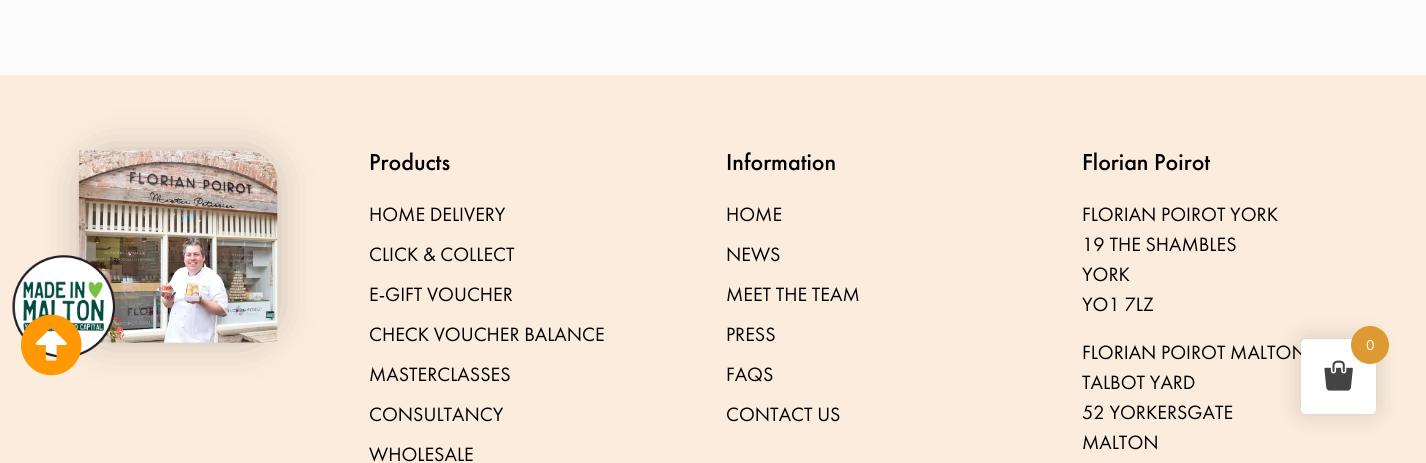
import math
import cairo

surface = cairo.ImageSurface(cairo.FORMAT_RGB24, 1426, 463)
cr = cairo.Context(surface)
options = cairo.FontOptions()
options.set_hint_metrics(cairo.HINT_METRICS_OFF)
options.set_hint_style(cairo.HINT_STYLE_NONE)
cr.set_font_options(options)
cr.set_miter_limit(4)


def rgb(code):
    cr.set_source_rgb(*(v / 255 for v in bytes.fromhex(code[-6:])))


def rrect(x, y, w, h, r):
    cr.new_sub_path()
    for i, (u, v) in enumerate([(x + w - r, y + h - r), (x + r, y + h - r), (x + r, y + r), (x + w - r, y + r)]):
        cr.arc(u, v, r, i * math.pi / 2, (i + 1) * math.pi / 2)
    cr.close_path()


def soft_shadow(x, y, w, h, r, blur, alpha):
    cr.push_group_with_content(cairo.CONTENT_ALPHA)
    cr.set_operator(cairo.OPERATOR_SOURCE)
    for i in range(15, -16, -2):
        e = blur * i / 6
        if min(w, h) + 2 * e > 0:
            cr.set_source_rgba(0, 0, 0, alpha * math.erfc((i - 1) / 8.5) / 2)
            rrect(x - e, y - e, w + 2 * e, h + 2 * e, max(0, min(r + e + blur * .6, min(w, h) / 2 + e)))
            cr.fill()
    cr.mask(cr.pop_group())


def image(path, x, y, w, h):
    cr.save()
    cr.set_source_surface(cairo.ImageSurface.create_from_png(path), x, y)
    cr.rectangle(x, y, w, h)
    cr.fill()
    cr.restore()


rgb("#fbfbfb")
cr.paint()
rgb("#fbecdd")
cr.rectangle(0, 75, 1426, 388)
cr.fill()
rgb("#000000")
soft_shadow(79, 150, 199, 193, 31, 19, 0.2)
image("img/1.png", 78, 150, 200, 193)
image("img/2.png", 12, 255, 103, 103)
image("img/3.png", 21, 314, 61, 62)
soft_shadow(1301, 339, 75, 75, 5, 12.5, 0.15)
cr.select_font_face("Futura PT Medium")
cr.set_font_size(24)
rgb("#000000")
cr.move_to(369, 170)
cr.show_text("Products")
cr.select_font_face("Futura PT")
cr.set_font_size(20)
for x, y, s in [
    (369, 221, "HOME DELIVERY"),
    (369, 261, "CLICK & COLLECT"),
    (369, 301, "E-GIFT VOUCHER"),
    (369, 341, "CHECK VOUCHER BALANCE"),
    (369, 381, "MASTERCLASSES"),
    (369, 421, "CONSULTANCY"),
    (369, 461, "WHOLESALE"),
]:
    cr.move_to(x, y)
    cr.show_text(s)
cr.select_font_face("Futura PT Medium")
cr.set_font_size(24)
cr.move_to(726, 170)
cr.show_text("Information")
cr.select_font_face("Futura PT")
cr.set_font_size(20)
for x, y, s in [
    (726, 221, "HOME"),
    (726, 261, "NEWS"),
    (726, 301, "MEET THE TEAM"),
    (726, 341, "PRESS"),
    (726, 381, "FAQS"),
    (726, 421, "CONTACT US"),
]:
    cr.move_to(x, y)
    cr.show_text(s)
cr.select_font_face("Futura PT Medium")
cr.set_font_size(24)
cr.move_to(1082, 170)
cr.show_text("Florian Poirot")
cr.select_font_face("Futura PT")
cr.set_font_size(20)
for x, y, s in [
    (1082, 221, "FLORIAN POIROT YORK"),
    (1082, 251, "19 THE SHAMBLES"),
    (1082, 281, "YORK"),
    (1082, 311, "YO1 7LZ"),
    (1082, 359, "FLORIAN POIROT MALTON"),
    (1082, 389, "TALBOT YARD"),
    (1082, 419, "52 YORKERSGATE"),
    (1082, 449, "MALTON"),
]:
    cr.move_to(x, y)
    cr.show_text(s)
rgb("#ffffff")
rrect(1301, 339, 75, 75, 5)
cr.fill()
image("img/4.png", 1324, 360, 29, 31)
rgb("#dd9933")
cr.arc(1370, 345, 19, 0, 2 * math.pi)
cr.fill()
cr.set_font_size(15)
rgb("#ffffff")
cr.move_to(1366, 350)
cr.show_text("0")
surface.write_to_png("page.png")
